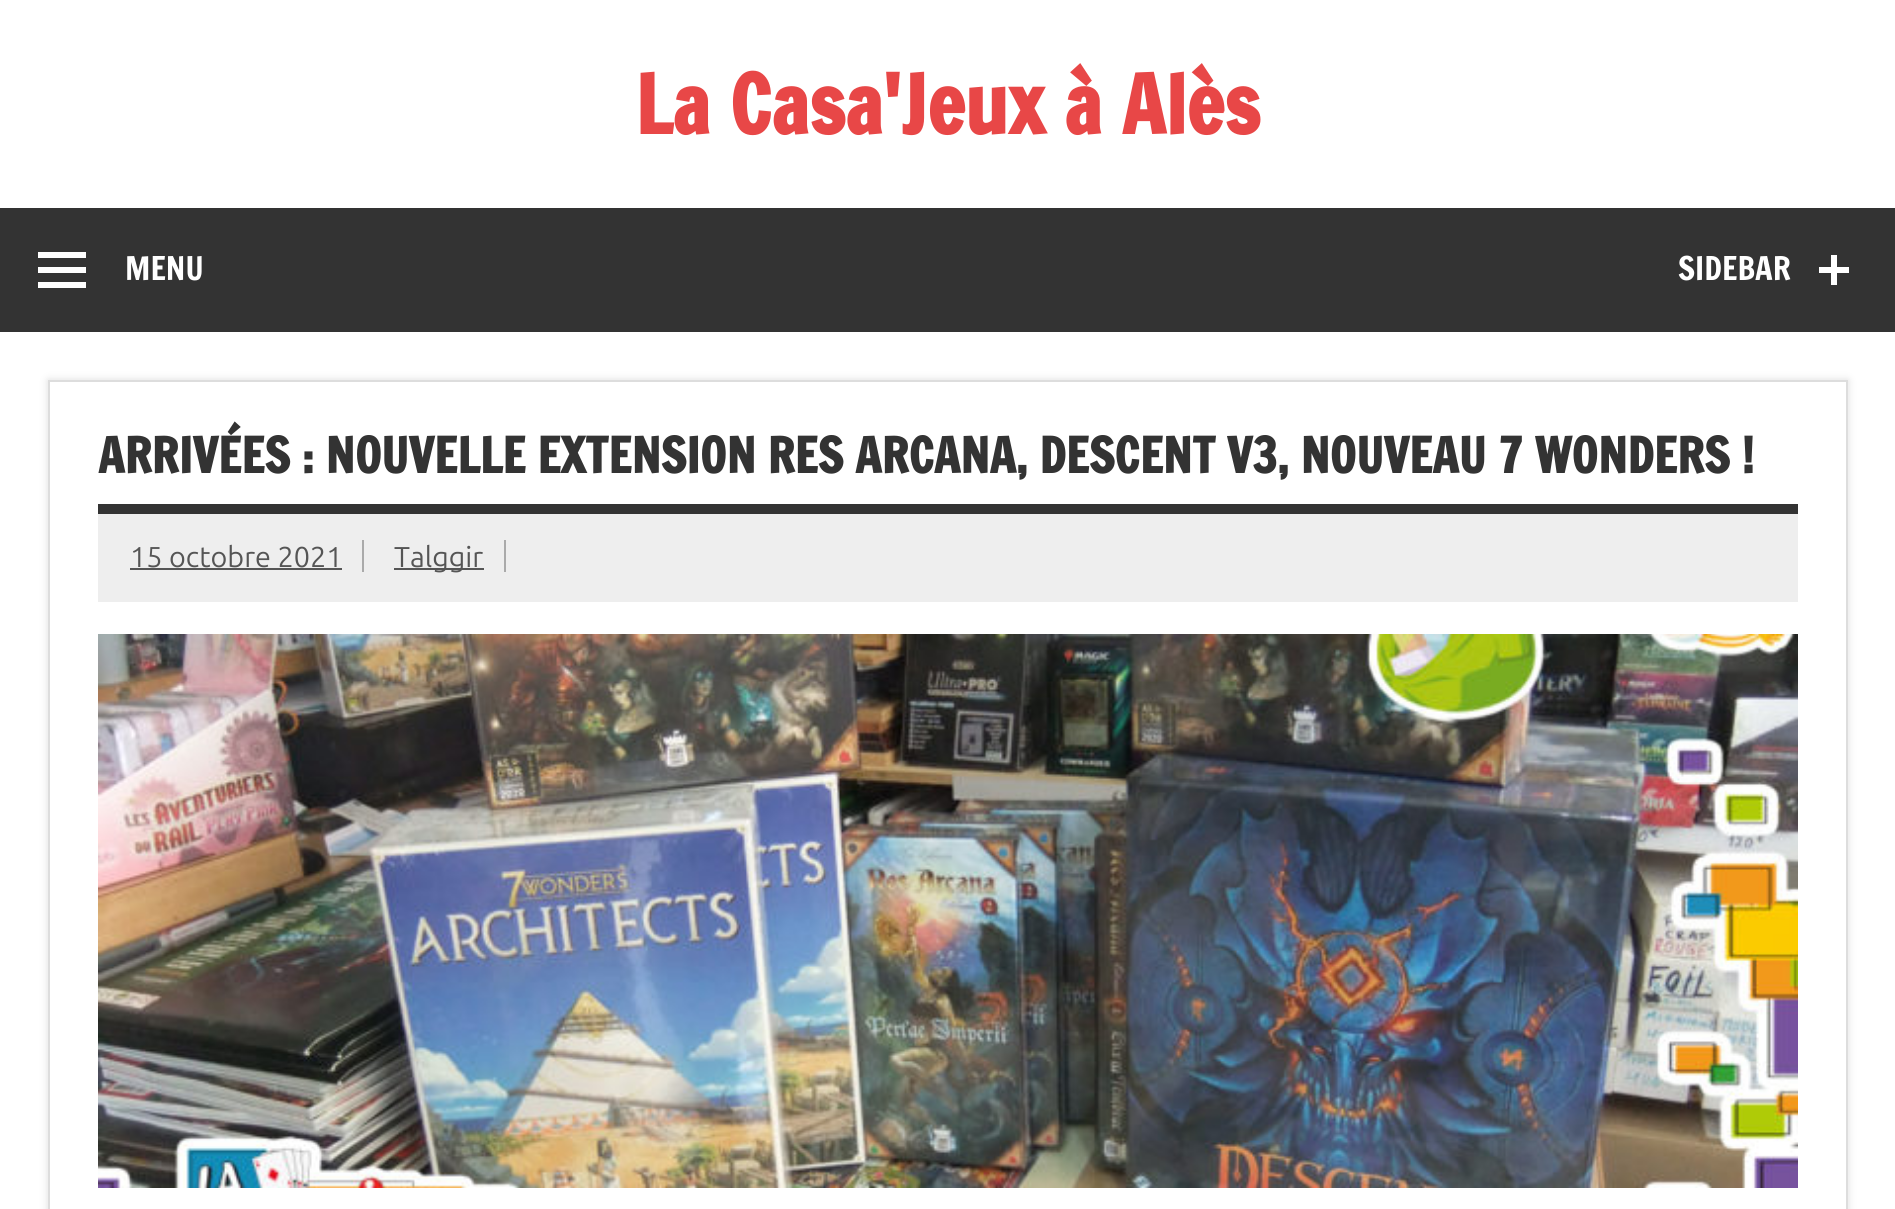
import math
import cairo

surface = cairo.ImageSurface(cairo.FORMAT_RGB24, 1895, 1209)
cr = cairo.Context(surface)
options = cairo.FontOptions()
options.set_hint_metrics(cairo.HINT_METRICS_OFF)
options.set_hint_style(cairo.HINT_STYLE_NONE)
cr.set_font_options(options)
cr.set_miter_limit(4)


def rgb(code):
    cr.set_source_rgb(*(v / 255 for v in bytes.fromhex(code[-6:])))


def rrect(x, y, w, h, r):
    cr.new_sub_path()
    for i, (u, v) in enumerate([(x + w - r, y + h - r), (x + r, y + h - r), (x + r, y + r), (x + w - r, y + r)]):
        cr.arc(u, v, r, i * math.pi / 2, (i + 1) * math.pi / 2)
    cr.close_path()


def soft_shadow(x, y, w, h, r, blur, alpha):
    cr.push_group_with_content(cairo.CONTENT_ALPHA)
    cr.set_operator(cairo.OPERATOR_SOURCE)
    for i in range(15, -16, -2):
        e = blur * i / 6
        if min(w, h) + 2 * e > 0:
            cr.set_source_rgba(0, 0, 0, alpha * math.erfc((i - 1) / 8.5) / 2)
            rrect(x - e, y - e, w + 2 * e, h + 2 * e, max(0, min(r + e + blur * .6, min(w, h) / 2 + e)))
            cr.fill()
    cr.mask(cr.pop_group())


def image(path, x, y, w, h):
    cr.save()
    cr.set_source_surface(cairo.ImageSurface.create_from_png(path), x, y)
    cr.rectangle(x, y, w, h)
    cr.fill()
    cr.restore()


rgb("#ffffff")
cr.paint()
rgb("#333333")
cr.rectangle(0, 208, 1895, 124)
cr.fill()
rgb("#ffffff")
cr.new_path()
cr.move_to(38, 288)
cr.line_to(38, 282)
cr.line_to(86, 282)
cr.line_to(86, 288)
cr.close_path()
cr.move_to(38, 252)
cr.line_to(86, 252)
cr.line_to(86, 258)
cr.line_to(38, 258)
cr.close_path()
cr.move_to(38, 273)
cr.line_to(38, 267)
cr.line_to(86, 267)
cr.line_to(86, 273)
cr.close_path()
cr.fill()
image("img/1.png", 1819, 255, 30, 30)
cr.save()
cr.set_fill_rule(cairo.FILL_RULE_EVEN_ODD)
cr.new_path()
cr.move_to(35, 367)
cr.line_to(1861, 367)
cr.line_to(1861, 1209)
cr.line_to(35, 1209)
cr.close_path()
cr.move_to(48, 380)
cr.line_to(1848, 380)
cr.line_to(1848, 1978)
cr.line_to(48, 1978)
cr.close_path()
cr.clip()
rgb("#dddddd")
soft_shadow(48, 380, 1800, 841, 0, 4, 1)
cr.restore()
cr.rectangle(49, 381, 1798, 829)
rgb("#dddddd")
cr.stroke()
for x, y, w, h, color in [
    (98, 504, 1700, 10, "#333333"),
    (98, 514, 1700, 88, "#eeeeee"),
    (362, 540, 2, 32, "#aaaaaa"),
    (130, 568, 212, 2, "#555555"),
    (504, 540, 2, 32, "#aaaaaa"),
    (394, 568, 90, 2, "#555555"),
]:
    rgb(color)
    cr.rectangle(x, y, w, h)
    cr.fill()
image("img/2.png", 98, 634, 1700, 554)
cr.select_font_face("Francois One", cairo.FONT_SLANT_NORMAL, cairo.FONT_WEIGHT_BOLD)
cr.set_font_size(80)
rgb("#e84747")
cr.move_to(635, 134)
cr.show_text("La Casa'Jeux à Alès")
cr.select_font_face("Francois One")
cr.set_font_size(32)
rgb("#ffffff")
cr.move_to(125, 280)
cr.show_text("MENU")
cr.move_to(1678, 280)
cr.show_text("SIDEBAR")
cr.select_font_face("Francois One", cairo.FONT_SLANT_NORMAL, cairo.FONT_WEIGHT_BOLD)
cr.set_font_size(48)
rgb("#333333")
cr.move_to(98, 473)
cr.show_text("ARRIVÉES : NOUVELLE EXTENSION RES ARCANA, DESCENT V3, NOUVEAU 7 WONDERS !")
cr.select_font_face("Ubuntu")
cr.set_font_size(28.75)
rgb("#555555")
cr.move_to(130, 567)
cr.show_text("15 octobre 2021")
cr.move_to(394, 567)
cr.show_text("Talggir")
surface.write_to_png("page.png")
